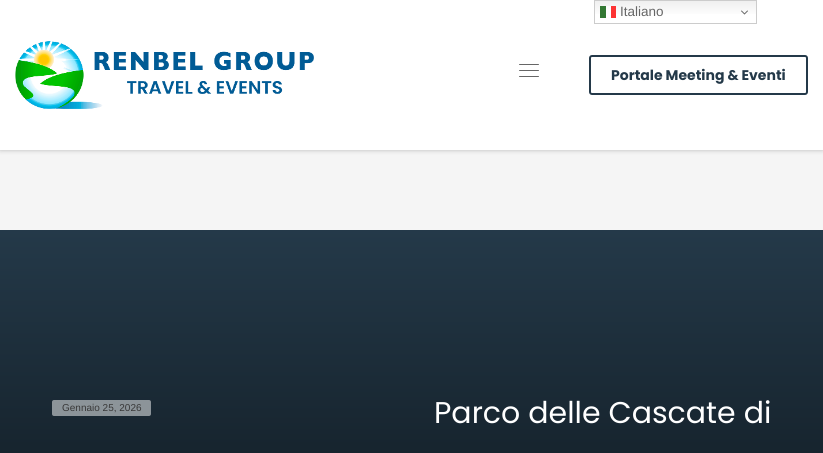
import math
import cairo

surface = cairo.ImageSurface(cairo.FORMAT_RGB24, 823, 453)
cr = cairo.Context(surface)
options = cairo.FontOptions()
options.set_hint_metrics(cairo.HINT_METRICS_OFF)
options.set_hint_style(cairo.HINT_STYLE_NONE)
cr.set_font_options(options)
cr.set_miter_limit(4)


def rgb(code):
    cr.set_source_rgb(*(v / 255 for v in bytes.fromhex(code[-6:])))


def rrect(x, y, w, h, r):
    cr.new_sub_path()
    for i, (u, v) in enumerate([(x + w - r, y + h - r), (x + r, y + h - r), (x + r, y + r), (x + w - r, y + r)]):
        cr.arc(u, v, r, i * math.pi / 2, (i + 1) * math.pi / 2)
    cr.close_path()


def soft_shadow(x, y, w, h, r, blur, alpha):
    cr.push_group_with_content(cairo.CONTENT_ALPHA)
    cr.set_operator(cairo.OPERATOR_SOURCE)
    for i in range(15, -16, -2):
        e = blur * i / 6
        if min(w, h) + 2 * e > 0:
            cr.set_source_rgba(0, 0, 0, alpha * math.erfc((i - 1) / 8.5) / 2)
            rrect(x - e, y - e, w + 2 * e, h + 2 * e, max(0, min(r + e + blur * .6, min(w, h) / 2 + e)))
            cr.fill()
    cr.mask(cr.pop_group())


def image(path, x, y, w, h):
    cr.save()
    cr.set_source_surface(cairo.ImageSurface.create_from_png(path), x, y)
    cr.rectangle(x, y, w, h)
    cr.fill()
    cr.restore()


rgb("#f5f5f5")
cr.paint()
rgb("#000000")
soft_shadow(0, 0, 823, 150, 0, 2.5, 0.25)
rgb("#ffffff")
cr.rectangle(0, 0, 823, 150)
cr.fill()
gradient = cairo.LinearGradient(676, 0, 676, 24)
gradient.add_color_stop_rgba(0, 0.937, 0.937, 0.937, 1)
gradient.add_color_stop_rgba(0.7, 1, 1, 1, 1)
cr.set_source(gradient)
cr.rectangle(595, 1, 161, 13)
cr.fill()
gradient = cairo.LinearGradient(676, 0, 676, 24)
gradient.add_color_stop_rgba(0, 0.988, 0.988, 0.988, 1)
gradient.add_color_stop_rgba(0.7, 1, 1, 1, 1)
cr.set_source(gradient)
cr.rectangle(606, 6, 5, 12)
cr.fill()
cr.rectangle(594.5, 0.5, 162, 23)
rgb("#cccccc")
cr.set_line_width(1)
cr.stroke()
rgb("#337833")
cr.rectangle(600, 6, 6, 12)
cr.fill()
rgb("#fc3333")
cr.rectangle(611, 6, 5, 12)
cr.fill()
image("img/1.png", 741, 10, 7, 5)
image("img/2.png", 15, 41, 299, 68)
rgb("#666666")
rrect(519, 64, 20, 1, 0.5)
cr.fill()
rrect(519, 70, 20, 1, 0.5)
cr.fill()
rrect(519, 76, 20, 1, 0.5)
cr.fill()
rrect(590, 56, 217, 38, 2)
rgb("#243949")
cr.set_line_width(2)
cr.stroke()
gradient = cairo.LinearGradient(412, 230, 412, 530)
gradient.add_color_stop_rgba(0, 0.141, 0.224, 0.286, 1)
gradient.add_color_stop_rgba(1, 0.071, 0.114, 0.145, 1)
cr.set_source(gradient)
cr.rectangle(0, 230, 823, 223)
cr.fill()
rgb("#8c9499")
rrect(52, 400, 99, 16, 2)
cr.fill()
cr.select_font_face("Liberation Sans")
cr.set_font_size(13.5)
rgb("#666666")
cr.move_to(620, 16)
cr.show_text("Italiano")
cr.select_font_face("Poppins", cairo.FONT_SLANT_NORMAL, cairo.FONT_WEIGHT_BOLD)
cr.set_font_size(14)
rgb("#243949")
cr.move_to(611, 80)
cr.show_text("Portale Meeting & Eventi")
cr.select_font_face("Liberation Sans")
cr.set_font_size(10)
rgb("#383838")
cr.move_to(62, 411)
cr.show_text("Gennaio 25, 2026")
cr.select_font_face("Poppins")
cr.set_font_size(30)
rgb("#ffffff")
cr.move_to(434, 423)
cr.show_text("Parco delle Cascate di")
surface.write_to_png("page.png")
